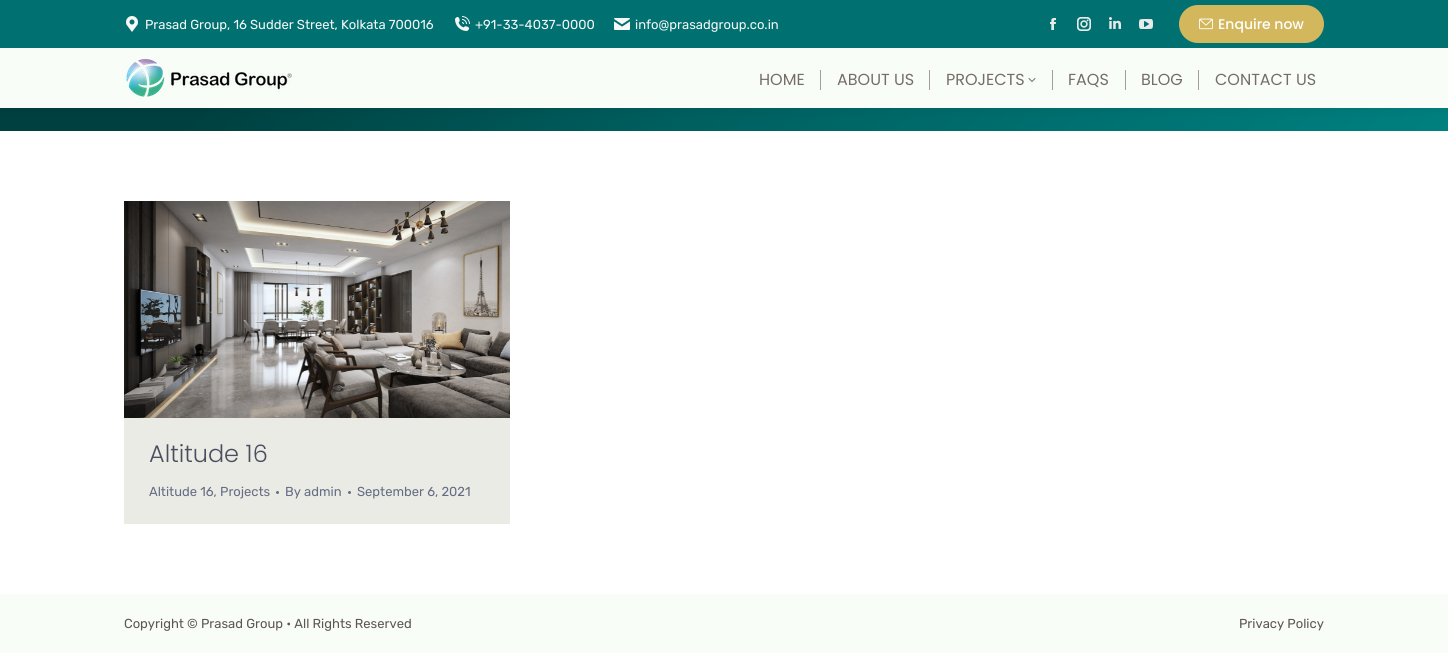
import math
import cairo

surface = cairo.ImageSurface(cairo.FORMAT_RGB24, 1448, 653)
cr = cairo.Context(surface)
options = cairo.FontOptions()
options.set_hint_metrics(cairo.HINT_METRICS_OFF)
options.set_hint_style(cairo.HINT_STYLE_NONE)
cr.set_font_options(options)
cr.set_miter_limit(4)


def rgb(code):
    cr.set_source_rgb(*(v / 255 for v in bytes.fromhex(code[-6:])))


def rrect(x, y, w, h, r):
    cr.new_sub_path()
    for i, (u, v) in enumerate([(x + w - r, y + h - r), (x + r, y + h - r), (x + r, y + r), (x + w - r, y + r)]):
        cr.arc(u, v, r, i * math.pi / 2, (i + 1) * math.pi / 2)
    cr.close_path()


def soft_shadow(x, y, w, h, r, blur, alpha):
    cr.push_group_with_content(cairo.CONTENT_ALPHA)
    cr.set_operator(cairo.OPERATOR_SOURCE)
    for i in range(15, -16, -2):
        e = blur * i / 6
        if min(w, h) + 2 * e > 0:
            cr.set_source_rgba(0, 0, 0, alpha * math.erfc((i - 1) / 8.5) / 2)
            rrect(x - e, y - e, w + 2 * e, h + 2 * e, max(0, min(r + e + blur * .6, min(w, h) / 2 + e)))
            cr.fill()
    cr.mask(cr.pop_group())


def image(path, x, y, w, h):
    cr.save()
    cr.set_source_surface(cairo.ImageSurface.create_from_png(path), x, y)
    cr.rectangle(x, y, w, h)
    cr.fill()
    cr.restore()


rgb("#ffffff")
cr.paint()
gradient = cairo.LinearGradient(337, -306, 1111, 468)
gradient.add_color_stop_rgba(0.18, 0, 0.251, 0.251, 1)
gradient.add_color_stop_rgba(0.5, 0, 0.373, 0.373, 1)
gradient.add_color_stop_rgba(1, 0, 0.502, 0.502, 1)
cr.set_source(gradient)
cr.rectangle(0, 108, 1448, 23)
cr.fill()
rgb("#000000")
soft_shadow(-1, -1, 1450, 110, 0, 7.5, 0.07)
rgb("#f8fdf8")
cr.rectangle(0, 48, 1448, 60)
cr.fill()
rgb("#007070")
cr.rectangle(0, 0, 1448, 48)
cr.fill()
image("img/1.png", 126, 16, 12, 16)
image("img/2.png", 455, 16, 15, 15)
image("img/3.png", 614, 18, 16, 12)
image("img/4.png", 1050, 18, 6, 12)
image("img/5.png", 1077, 17, 14, 14)
image("img/6.png", 1109, 17, 12, 12)
image("img/7.png", 1139, 19, 14, 10)
rgb("#d3b75d")
rrect(1179, 5, 145, 38, 19)
cr.fill()
image("img/8.png", 1199, 18, 14, 12)
image("img/9.png", 126, 58, 166, 39)
rgb("#a69d99")
cr.rectangle(820, 70, 1, 20)
cr.fill()
cr.rectangle(929, 70, 1, 20)
cr.fill()
image("img/10.png", 1028, 78, 8, 4)
for x, y, w, h, color in [
    (1052, 70, 1, 20, "#a69d99"),
    (1125, 70, 1, 20, "#a69d99"),
    (1198, 70, 1, 20, "#a69d99"),
    (124, 418, 386, 106, "#ebebe5"),
]:
    rgb(color)
    cr.rectangle(x, y, w, h)
    cr.fill()
image("img/11.png", 124, 201, 386, 217)
rgb("#656d84")
cr.arc(277.5, 492.5, 1.5, 0, 2 * math.pi)
cr.fill()
cr.arc(349.5, 492.5, 1.5, 0, 2 * math.pi)
cr.fill()
rgb("#f8fdf8")
cr.rectangle(0, 594, 1448, 59)
cr.fill()
cr.select_font_face("Rubik")
cr.set_font_size(13)
rgb("#f7f7f7")
for x, y, s in [
    (145, 29, "Prasad Group, 16 Sudder Street, Kolkata 700016"),
    (475, 29, "+91-33-4037-0000"),
    (635, 29, "info@prasadgroup.co.in"),
]:
    cr.move_to(x, y)
    cr.show_text(s)
cr.select_font_face("Poppins Medium")
cr.set_font_size(14)
rgb("#ffffff")
cr.move_to(1218, 29)
cr.show_text("Enquire now")
cr.select_font_face("Poppins")
cr.set_font_size(16)
rgb("#776d68")
for x, y, s in [
    (759, 85, "HOME"),
    (837, 85, "ABOUT US"),
    (946, 85, "PROJECTS"),
    (1068, 85, "FAQS"),
    (1141, 85, "BLOG"),
    (1215, 85, "CONTACT US"),
]:
    cr.move_to(x, y)
    cr.show_text(s)
cr.select_font_face("Poppins Light")
cr.set_font_size(24)
rgb("#4a4f60")
cr.move_to(149, 462)
cr.show_text("Altitude 16")
cr.select_font_face("Rubik")
cr.set_font_size(13)
rgb("#656d84")
for x, y, s in [
    (149, 496, "Altitude 16, Projects"),
    (285, 496, "By admin"),
    (357, 496, "September 6, 2021"),
]:
    cr.move_to(x, y)
    cr.show_text(s)
rgb("#5e5652")
cr.move_to(124, 628)
cr.show_text("Copyright © Prasad Group • All Rights Reserved")
cr.move_to(1239, 628)
cr.show_text("Privacy Policy")
surface.write_to_png("page.png")
